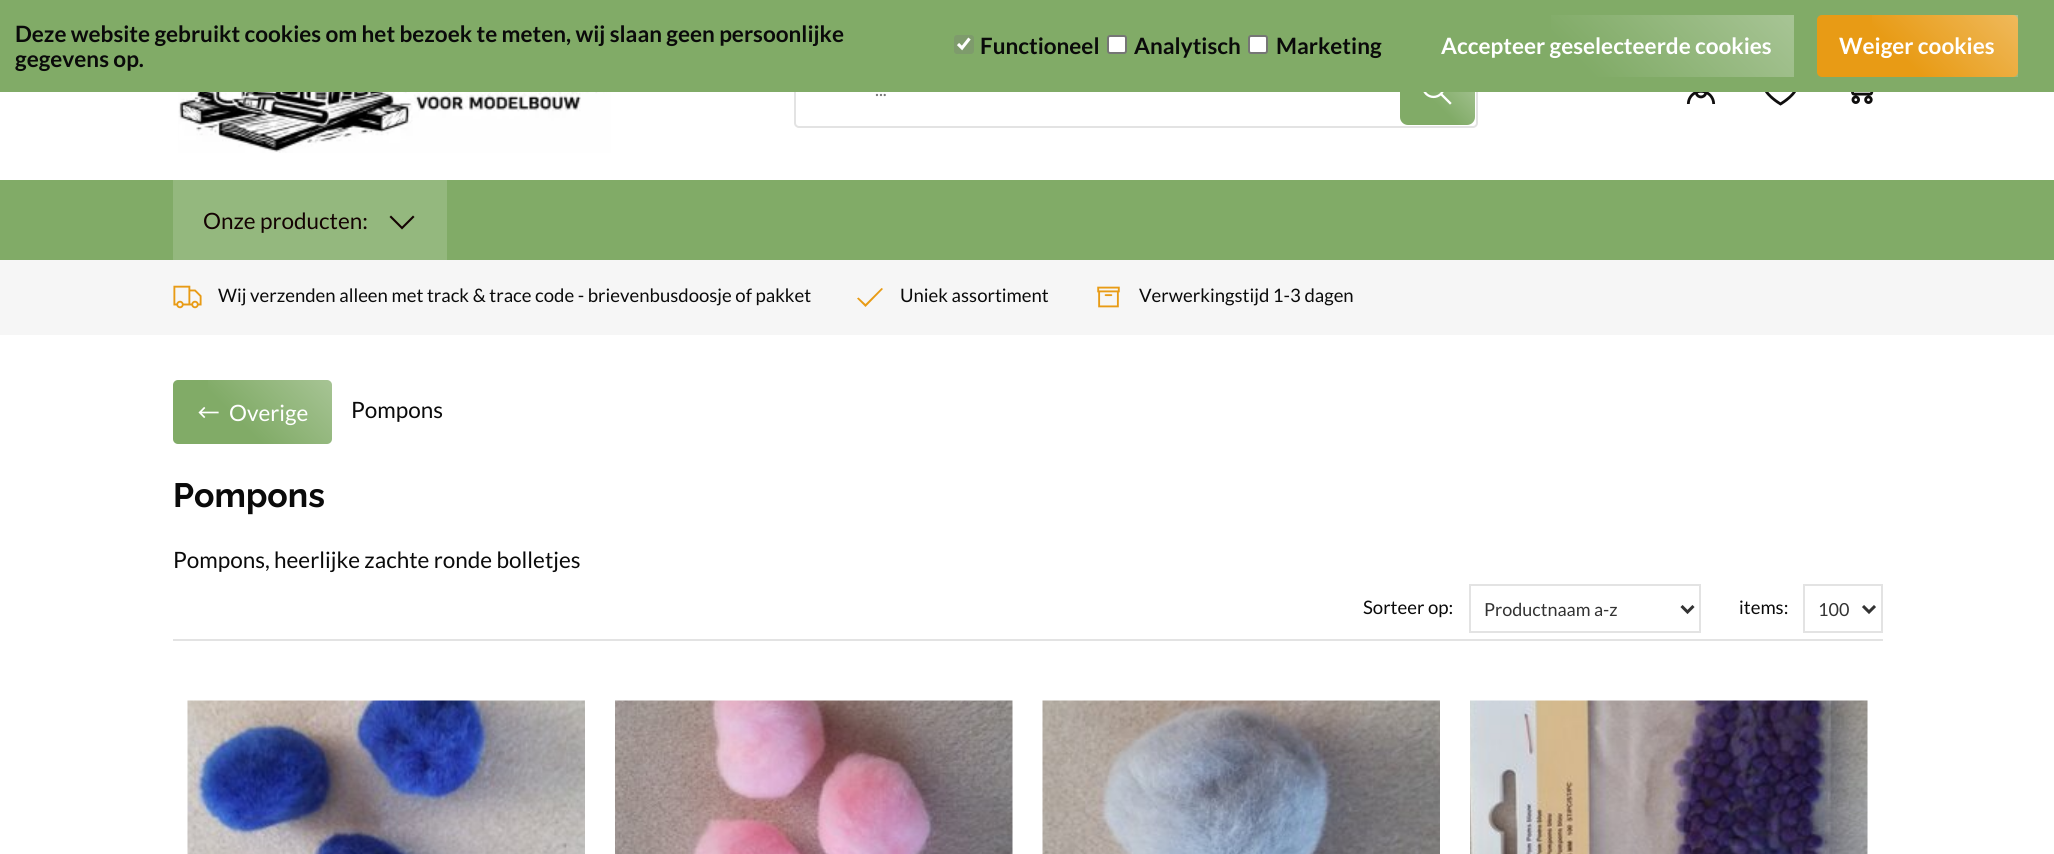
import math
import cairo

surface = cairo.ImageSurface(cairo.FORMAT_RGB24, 2054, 854)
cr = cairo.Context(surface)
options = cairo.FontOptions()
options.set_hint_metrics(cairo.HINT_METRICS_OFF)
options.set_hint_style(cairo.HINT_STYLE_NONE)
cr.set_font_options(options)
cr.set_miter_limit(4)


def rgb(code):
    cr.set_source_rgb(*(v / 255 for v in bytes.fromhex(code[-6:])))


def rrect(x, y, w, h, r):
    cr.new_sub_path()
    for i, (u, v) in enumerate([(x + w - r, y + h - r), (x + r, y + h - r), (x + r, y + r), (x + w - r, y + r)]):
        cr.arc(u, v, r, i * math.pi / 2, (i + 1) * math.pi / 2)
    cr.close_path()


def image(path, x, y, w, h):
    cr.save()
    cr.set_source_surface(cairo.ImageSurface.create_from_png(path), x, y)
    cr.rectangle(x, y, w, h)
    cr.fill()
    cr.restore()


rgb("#ffffff")
cr.paint()
rrect(795, 54, 682, 73, 4)
rgb("#e3e3e3")
cr.stroke()
rgb("#81ab67")
rrect(1400, 56, 75, 69, 8)
cr.fill()
cr.rectangle(0, 0, 2054, 92)
cr.fill()
rgb("#7e9b6c")
rrect(954, 35, 20, 19, 3)
cr.fill()
cr.new_path()
cr.move_to(958, 44)
cr.line_to(962, 48)
cr.line_to(969.5, 38.5)
rgb("#ffffff")
cr.set_line_width(3.1)
cr.stroke()
rrect(1108, 36, 18, 17, 2)
cr.fill_preserve()
rgb("#767676")
cr.set_line_width(2)
cr.stroke()
rgb("#ffffff")
rrect(1249, 36, 18, 17, 2)
cr.fill_preserve()
rgb("#767676")
cr.stroke()
gradient = cairo.LinearGradient(1716, -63, 1497, 155)
gradient.add_color_stop_rgba(0, 1, 1, 1, 0.3)
gradient.add_color_stop_rgba(0.6, 1, 1, 1, 0)
cr.set_source(gradient)
cr.rectangle(1551, 15, 243, 62)
cr.fill()
rgb("#e89b15")
rrect(1817, 15, 201, 62, 5)
cr.fill()
gradient = cairo.LinearGradient(1983, -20, 1851, 111)
gradient.add_color_stop_rgba(0, 1, 1, 1, 0.3)
gradient.add_color_stop_rgba(0.6, 1, 1, 1, 0)
cr.set_source(gradient)
cr.rectangle(1872, 15, 146, 62)
cr.fill()
image("img/1.png", 178, 92, 433, 61)
gradient = cairo.LinearGradient(1473, 54, 1401, 126)
gradient.add_color_stop_rgba(0, 1, 1, 1, 0.4)
gradient.add_color_stop_rgba(0.6, 1, 1, 1, 0)
cr.set_source(gradient)
cr.rectangle(1430, 92, 45, 33)
cr.fill()
image("img/2.png", 1423, 92, 29, 13)
image("img/3.png", 1686, 92, 30, 12)
image("img/4.png", 1765, 92, 31, 14)
image("img/5.png", 1851, 92, 23, 12)
rgb("#81ab67")
cr.rectangle(0, 180, 2054, 80)
cr.fill()
rgb("#94b87e")
cr.rectangle(173, 180, 274, 80)
cr.fill()
rgb("#140202")
cr.new_path()
cr.move_to(391, 215.5)
cr.line_to(389.5, 217)
cr.line_to(402, 229.5)
cr.line_to(414.5, 217)
cr.line_to(413, 215.5)
cr.line_to(402, 226.5)
cr.close_path()
cr.fill()
rgb("#f6f6f6")
cr.rectangle(0, 260, 2054, 75)
cr.fill()
image("img/6.png", 173, 285, 29, 24)
rgb("#e89b15")
cr.new_path()
cr.move_to(881.5, 288)
cr.line_to(865.5, 304)
cr.line_to(858.5, 297.5)
cr.line_to(857, 298.5)
cr.line_to(865.5, 307)
cr.line_to(883, 289)
cr.close_path()
cr.fill()
image("img/7.png", 1097, 286, 23, 22)
rgb("#81ab67")
rrect(173, 380, 159, 64, 5)
cr.fill()
image("img/8.png", 198, 406, 21, 13)
gradient = cairo.LinearGradient(308, 356, 196, 468)
gradient.add_color_stop_rgba(0, 1, 1, 1, 0.3)
gradient.add_color_stop_rgba(0.6, 1, 1, 1, 0)
cr.set_source(gradient)
cr.rectangle(208, 380, 124, 64)
cr.fill()
rgb("#e3e3e3")
cr.rectangle(173, 639, 1710, 2)
cr.fill()
cr.rectangle(1470, 585, 230, 47)
cr.stroke()
cr.new_path()
cr.move_to(1681.5, 606)
cr.line_to(1687.5, 612)
cr.line_to(1693.5, 606)
rgb("#333333")
cr.set_line_width(3)
cr.stroke()
cr.rectangle(1804, 585, 78, 47)
rgb("#e3e3e3")
cr.set_line_width(2)
cr.stroke()
cr.new_path()
cr.move_to(1863, 606)
cr.line_to(1869, 612)
cr.line_to(1875, 606)
rgb("#333333")
cr.set_line_width(3)
cr.stroke()
image("img/9.png", 187, 700, 398, 154)
image("img/10.png", 615, 700, 398, 154)
image("img/11.png", 1042, 700, 398, 154)
image("img/12.png", 1470, 700, 398, 154)
cr.select_font_face("Lato", cairo.FONT_SLANT_NORMAL, cairo.FONT_WEIGHT_BOLD)
cr.set_font_size(22.5)
rgb("#0a0a0a")
for x, y, s in [
    (15, 42, "Deze website gebruikt cookies om het bezoek te meten, wij slaan geen persoonlijke"),
    (15, 67, "gegevens op."),
    (980, 54, "Functioneel"),
    (1134, 54, "Analytisch"),
    (1276, 54, "Marketing"),
]:
    cr.move_to(x, y)
    cr.show_text(s)
rgb("#ffffff")
cr.move_to(1441, 54)
cr.show_text("Accepteer geselecteerde cookies")
cr.move_to(1839, 54)
cr.show_text("Weiger cookies")
cr.select_font_face("Lato")
cr.set_font_size(18.55)
rgb("#757575")
cr.move_to(875, 96)
cr.show_text("...")
cr.set_font_size(22.5)
rgb("#140202")
cr.move_to(203, 229)
cr.show_text("Onze producten:")
cr.set_font_size(18.55)
rgb("#0a0a0a")
for x, y, s in [
    (218, 302, "Wij verzenden alleen met track & trace code - brievenbusdoosje of pakket"),
    (900, 302, "Uniek assortiment"),
    (1139, 302, "Verwerkingstijd 1-3 dagen"),
]:
    cr.move_to(x, y)
    cr.show_text(s)
cr.set_font_size(22.5)
rgb("#ffffff")
cr.move_to(229, 421)
cr.show_text("Overige")
rgb("#0a0a0a")
cr.move_to(351, 418)
cr.show_text("Pompons")
cr.select_font_face("Raleway", cairo.FONT_SLANT_NORMAL, cairo.FONT_WEIGHT_BOLD)
cr.set_font_size(33.75)
cr.move_to(173, 507)
cr.show_text("Pompons")
cr.select_font_face("Lato")
cr.set_font_size(22.5)
cr.move_to(173, 568)
cr.show_text("Pompons, heerlijke zachte ronde bolletjes")
cr.set_font_size(18.55)
cr.move_to(1363, 614)
cr.show_text("Sorteer op:")
cr.set_font_size(18)
rgb("#333333")
cr.move_to(1484, 616)
cr.show_text("Productnaam a-z")
cr.set_font_size(18.55)
rgb("#0a0a0a")
cr.move_to(1739, 614)
cr.show_text("items:")
cr.set_font_size(18)
rgb("#333333")
cr.move_to(1818, 616)
cr.show_text("100")
surface.write_to_png("page.png")
